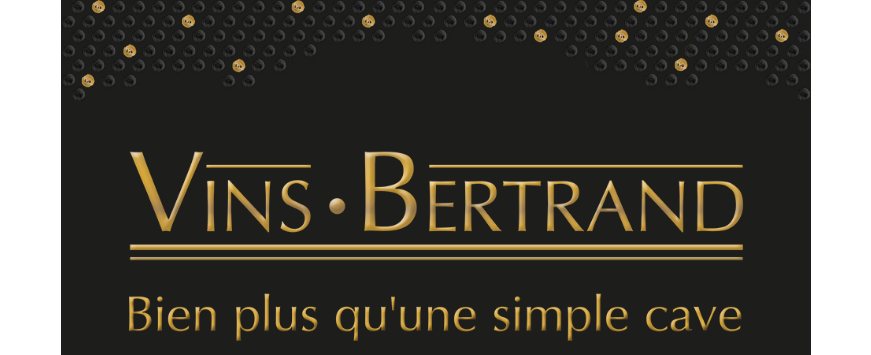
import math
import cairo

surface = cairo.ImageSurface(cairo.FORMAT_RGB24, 871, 355)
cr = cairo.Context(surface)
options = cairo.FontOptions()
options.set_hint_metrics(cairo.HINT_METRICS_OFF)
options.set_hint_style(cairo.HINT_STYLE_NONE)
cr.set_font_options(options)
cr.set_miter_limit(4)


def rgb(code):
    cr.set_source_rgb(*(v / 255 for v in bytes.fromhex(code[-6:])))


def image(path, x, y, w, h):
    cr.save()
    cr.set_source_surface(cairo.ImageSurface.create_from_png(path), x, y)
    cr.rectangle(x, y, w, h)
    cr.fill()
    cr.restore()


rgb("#ffffff")
cr.paint()
rgb("#1d1d1b")
cr.rectangle(61, 0, 750, 355)
cr.fill()
image("img/1.png", 62, 0, 749, 101)
image("img/2.png", 129, 151, 615, 190)
surface.write_to_png("page.png")
